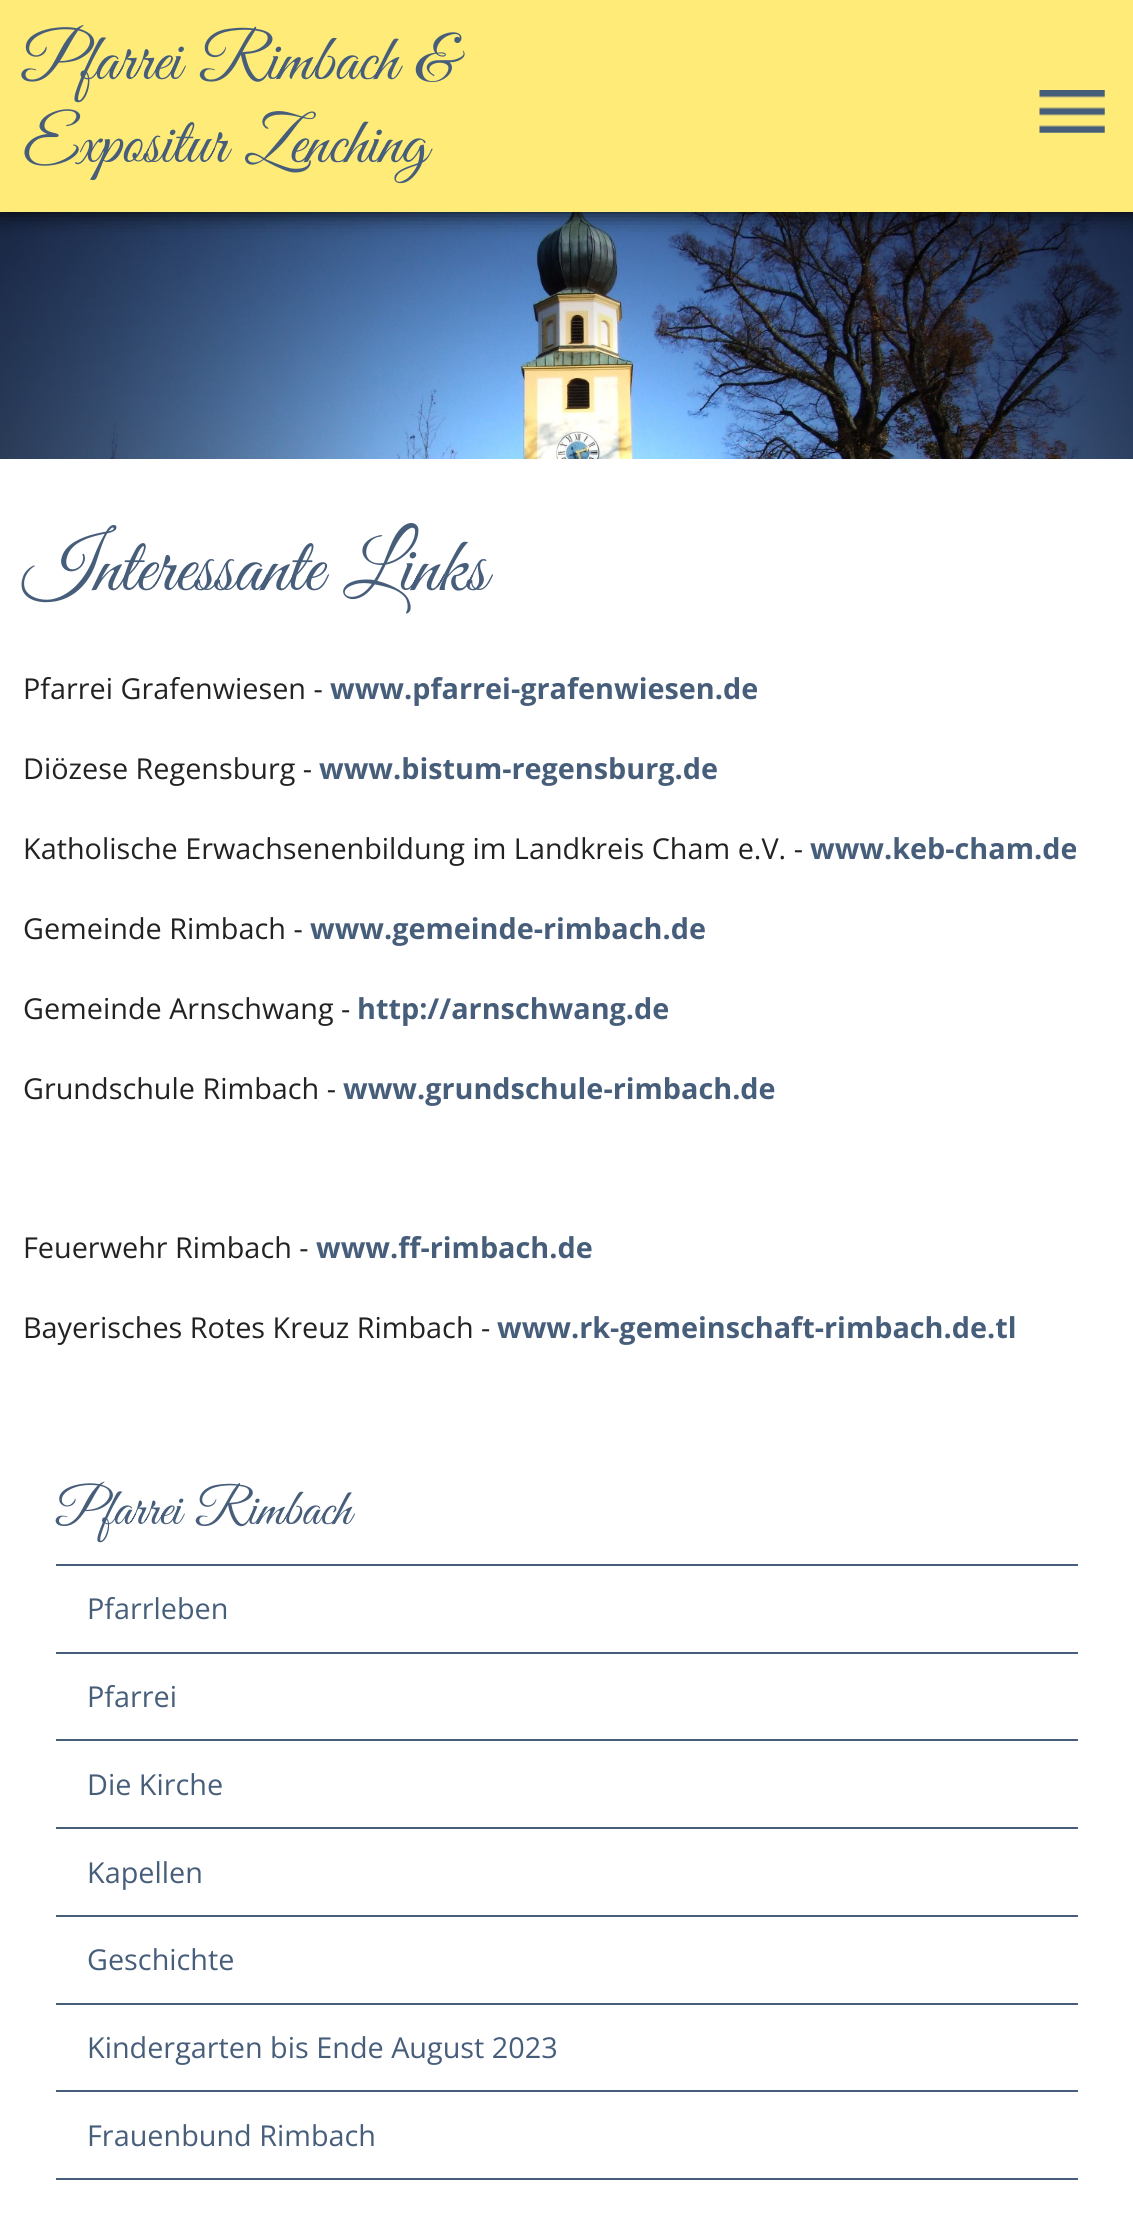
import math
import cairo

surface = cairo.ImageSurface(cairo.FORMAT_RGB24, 1133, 2218)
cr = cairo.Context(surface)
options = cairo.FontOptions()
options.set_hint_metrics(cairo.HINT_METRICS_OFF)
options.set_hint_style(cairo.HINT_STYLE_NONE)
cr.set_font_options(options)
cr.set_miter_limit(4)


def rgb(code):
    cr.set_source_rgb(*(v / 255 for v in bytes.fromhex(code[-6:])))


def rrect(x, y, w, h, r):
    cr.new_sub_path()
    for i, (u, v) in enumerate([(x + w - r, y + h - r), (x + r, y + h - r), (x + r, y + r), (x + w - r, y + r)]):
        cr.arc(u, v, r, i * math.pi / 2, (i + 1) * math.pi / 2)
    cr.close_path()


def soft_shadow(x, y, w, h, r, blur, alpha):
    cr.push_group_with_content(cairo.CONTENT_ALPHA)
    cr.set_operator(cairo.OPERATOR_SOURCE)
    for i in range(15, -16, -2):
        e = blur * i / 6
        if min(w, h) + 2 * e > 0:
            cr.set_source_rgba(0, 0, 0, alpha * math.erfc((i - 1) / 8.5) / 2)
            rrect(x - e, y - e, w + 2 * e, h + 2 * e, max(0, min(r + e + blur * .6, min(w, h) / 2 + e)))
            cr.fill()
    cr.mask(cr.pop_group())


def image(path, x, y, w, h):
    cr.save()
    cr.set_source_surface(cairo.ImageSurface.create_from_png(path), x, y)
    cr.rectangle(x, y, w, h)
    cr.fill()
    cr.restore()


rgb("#ffffff")
cr.paint()
image("img/1.png", 0, 212, 1133, 247)
rgb("#000000")
soft_shadow(0, 0, 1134, 212, 0, 11, 1)
rgb("#ffeb78")
cr.rectangle(0, 0, 1133, 212)
cr.fill()
image("img/2.png", 1039, 90, 66, 43)
for x, y, w, h, color in [
    (56, 1564, 1022, 2, "#475e7b"),
    (56, 1652, 1022, 2, "#475e7b"),
    (56, 1739, 1022, 2, "#475e7b"),
    (56, 1827, 1022, 2, "#475e7b"),
    (56, 1915, 1022, 2, "#475e7b"),
    (56, 2003, 1022, 2, "#475e7b"),
    (56, 2090, 1022, 2, "#475e7b"),
    (56, 2178, 1022, 2, "#475e7b"),
]:
    rgb(color)
    cr.rectangle(x, y, w, h)
    cr.fill()
cr.select_font_face("Great Vibes")
cr.set_font_size(66.25)
cr.move_to(23, 79)
cr.show_text("Pfarrei Rimbach &")
cr.move_to(23, 162)
cr.show_text("Expositur Zenching")
cr.set_font_size(77.75)
cr.move_to(23, 590)
cr.show_text("Interessante Links")
cr.select_font_face("Open Sans")
cr.set_font_size(28.8)
rgb("#222222")
cr.move_to(23, 699)
cr.show_text("Pfarrei Grafenwiesen -")
cr.select_font_face("Open Sans", cairo.FONT_SLANT_NORMAL, cairo.FONT_WEIGHT_BOLD)
rgb("#475e7b")
cr.move_to(330, 699)
cr.show_text("www.pfarrei-grafenwiesen.de")
cr.select_font_face("Open Sans")
rgb("#222222")
cr.move_to(23, 779)
cr.show_text("Diözese Regensburg -")
cr.select_font_face("Open Sans", cairo.FONT_SLANT_NORMAL, cairo.FONT_WEIGHT_BOLD)
rgb("#475e7b")
cr.move_to(319, 779)
cr.show_text("www.bistum-regensburg.de")
cr.select_font_face("Open Sans")
rgb("#222222")
cr.move_to(23, 859)
cr.show_text("Katholische Erwachsenenbildung im Landkreis Cham e.V. -")
cr.select_font_face("Open Sans", cairo.FONT_SLANT_NORMAL, cairo.FONT_WEIGHT_BOLD)
rgb("#475e7b")
cr.move_to(810, 859)
cr.show_text("www.keb-cham.de")
cr.select_font_face("Open Sans")
rgb("#222222")
cr.move_to(23, 939)
cr.show_text("Gemeinde Rimbach -")
cr.select_font_face("Open Sans", cairo.FONT_SLANT_NORMAL, cairo.FONT_WEIGHT_BOLD)
rgb("#475e7b")
cr.move_to(310, 939)
cr.show_text("www.gemeinde-rimbach.de")
cr.select_font_face("Open Sans")
rgb("#222222")
cr.move_to(23, 1019)
cr.show_text("Gemeinde Arnschwang -")
cr.select_font_face("Open Sans", cairo.FONT_SLANT_NORMAL, cairo.FONT_WEIGHT_BOLD)
rgb("#475e7b")
cr.move_to(357, 1019)
cr.show_text("http://arnschwang.de")
cr.select_font_face("Open Sans")
rgb("#222222")
cr.move_to(23, 1099)
cr.show_text("Grundschule Rimbach -")
cr.select_font_face("Open Sans", cairo.FONT_SLANT_NORMAL, cairo.FONT_WEIGHT_BOLD)
rgb("#475e7b")
cr.move_to(343, 1099)
cr.show_text("www.grundschule-rimbach.de")
cr.select_font_face("Open Sans")
rgb("#222222")
cr.move_to(23, 1258)
cr.show_text("Feuerwehr Rimbach -")
cr.select_font_face("Open Sans", cairo.FONT_SLANT_NORMAL, cairo.FONT_WEIGHT_BOLD)
rgb("#475e7b")
cr.move_to(316, 1258)
cr.show_text("www.ff-rimbach.de")
cr.select_font_face("Open Sans")
rgb("#222222")
cr.move_to(23, 1338)
cr.show_text("Bayerisches Rotes Kreuz Rimbach -")
cr.select_font_face("Open Sans", cairo.FONT_SLANT_NORMAL, cairo.FONT_WEIGHT_BOLD)
rgb("#475e7b")
cr.move_to(497, 1338)
cr.show_text("www.rk-gemeinschaft-rimbach.de.tl")
cr.select_font_face("Great Vibes")
cr.set_font_size(52)
cr.move_to(57, 1524)
cr.show_text("Pfarrei Rimbach")
cr.select_font_face("Open Sans")
cr.set_font_size(28.8)
for x, y, s in [
    (87, 1619, "Pfarrleben"),
    (87, 1707, "Pfarrei"),
    (87, 1795, "Die Kirche"),
    (87, 1883, "Kapellen"),
    (87, 1970, "Geschichte"),
    (87, 2058, "Kindergarten bis Ende August 2023"),
    (87, 2146, "Frauenbund Rimbach"),
]:
    cr.move_to(x, y)
    cr.show_text(s)
surface.write_to_png("page.png")
